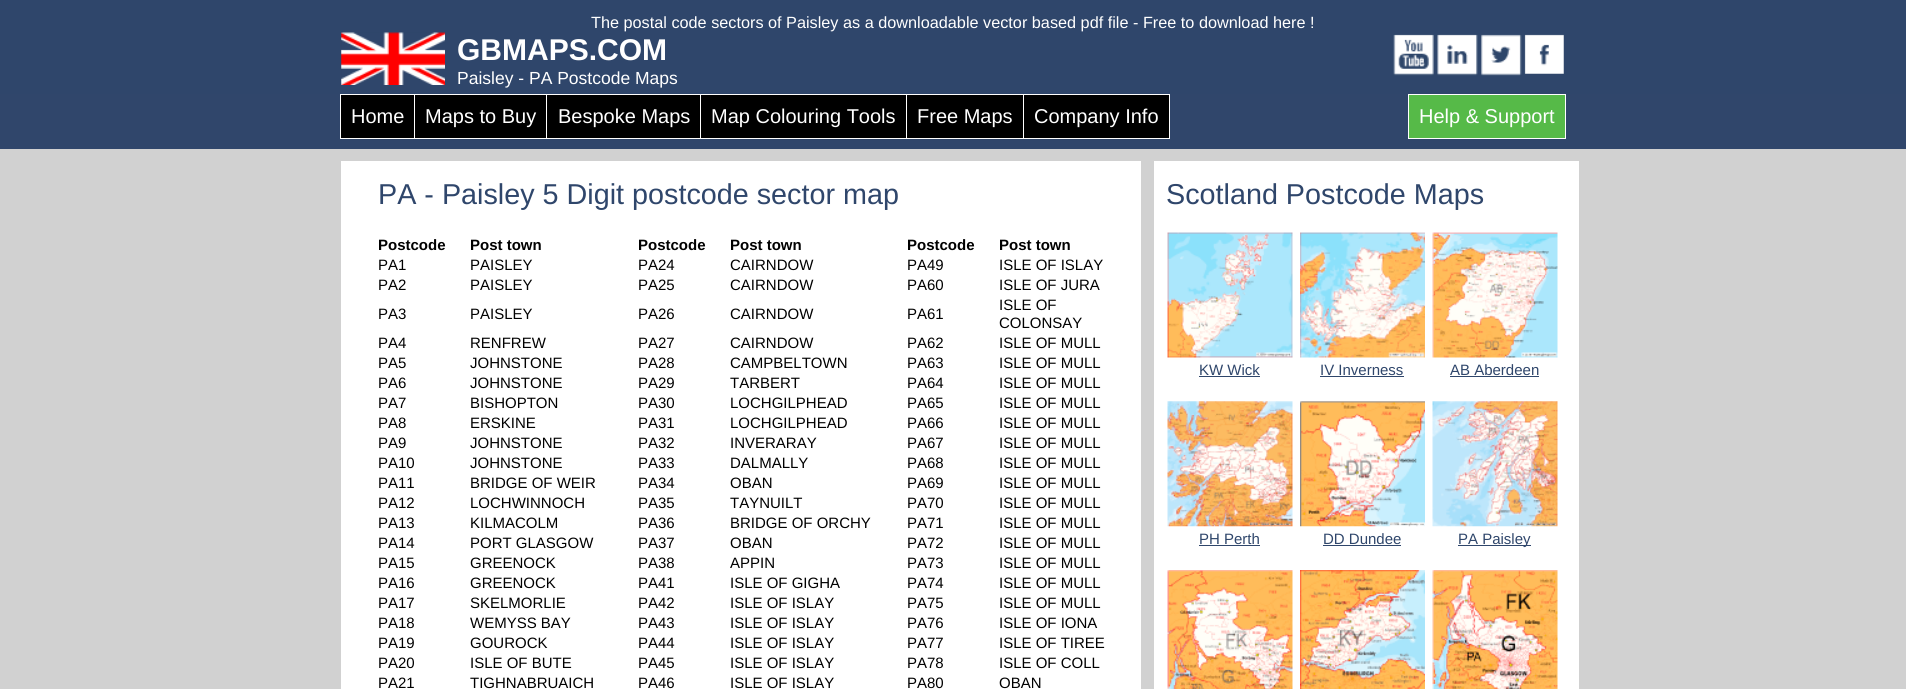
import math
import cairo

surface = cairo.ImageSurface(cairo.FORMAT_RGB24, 1906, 689)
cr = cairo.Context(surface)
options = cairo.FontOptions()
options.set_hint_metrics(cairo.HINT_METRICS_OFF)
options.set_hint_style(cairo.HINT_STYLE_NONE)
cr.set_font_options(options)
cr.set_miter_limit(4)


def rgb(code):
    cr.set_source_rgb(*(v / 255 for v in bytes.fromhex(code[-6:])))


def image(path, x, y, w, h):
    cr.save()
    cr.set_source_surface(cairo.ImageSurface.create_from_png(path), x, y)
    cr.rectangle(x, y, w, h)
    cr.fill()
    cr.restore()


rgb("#d1d1d1")
cr.paint()
rgb("#2f466b")
cr.rectangle(0, 0, 1906, 94)
cr.fill()
image("img/1.png", 341, 32, 104, 53)
image("img/2.png", 1393, 34, 41, 42)
image("img/3.png", 1437, 34, 41, 42)
image("img/4.png", 1481, 34, 41, 42)
image("img/5.png", 1524, 34, 40, 40)
rgb("#30466b")
cr.rectangle(0, 94, 1906, 55)
cr.fill()
rgb("#000000")
cr.rectangle(340.5, 94.5, 74, 44)
cr.fill_preserve()
rgb("#ffffff")
cr.set_line_width(1)
cr.stroke()
rgb("#000000")
cr.rectangle(415, 95, 131, 43)
cr.fill()
cr.rectangle(414.5, 94.5, 133, 44)
rgb("#ffffff")
cr.stroke()
rgb("#000000")
cr.rectangle(546.5, 94.5, 154, 44)
cr.fill_preserve()
rgb("#ffffff")
cr.stroke()
rgb("#000000")
cr.rectangle(701, 95, 205, 43)
cr.fill()
cr.rectangle(700.5, 94.5, 207, 44)
rgb("#ffffff")
cr.stroke()
rgb("#000000")
cr.rectangle(906.5, 94.5, 117, 44)
cr.fill_preserve()
rgb("#ffffff")
cr.stroke()
rgb("#000000")
cr.rectangle(1023.5, 94.5, 146, 44)
cr.fill_preserve()
rgb("#ffffff")
cr.stroke()
rgb("#56ba48")
cr.rectangle(1408.5, 94.5, 157, 44)
cr.fill_preserve()
rgb("#ffffff")
cr.stroke()
cr.rectangle(341, 161, 800, 528)
cr.fill()
cr.rectangle(1154, 161, 425, 528)
cr.fill()
image("img/6.png", 1167, 232, 126, 126)
rgb("#2f466b")
cr.rectangle(1199, 376, 61, 1)
cr.fill()
image("img/7.png", 1300, 232, 125, 126)
cr.rectangle(1320, 376, 84, 1)
cr.fill()
image("img/8.png", 1432, 232, 126, 126)
cr.rectangle(1450, 376, 89, 1)
cr.fill()
image("img/9.png", 1167, 401, 126, 126)
cr.rectangle(1199, 545, 61, 1)
cr.fill()
image("img/10.png", 1300, 401, 125, 126)
cr.rectangle(1323, 545, 78, 1)
cr.fill()
image("img/11.png", 1432, 401, 126, 126)
cr.rectangle(1458, 545, 73, 1)
cr.fill()
image("img/12.png", 1167, 570, 126, 119)
image("img/13.png", 1300, 570, 125, 119)
image("img/14.png", 1432, 570, 126, 119)
cr.select_font_face("Liberation Sans")
cr.set_font_size(16.25)
rgb("#ffffff")
cr.move_to(591, 28)
cr.show_text("The postal code sectors of Paisley as a downloadable vector based pdf file - Free to download here !")
cr.select_font_face("Liberation Sans", cairo.FONT_SLANT_NORMAL, cairo.FONT_WEIGHT_BOLD)
cr.set_font_size(30)
cr.move_to(457, 60)
cr.show_text("GBMAPS.COM")
cr.select_font_face("Liberation Sans")
cr.set_font_size(17.5)
cr.move_to(457, 84)
cr.show_text("Paisley - PA Postcode Maps")
cr.set_font_size(20)
for x, y, s in [
    (351, 123, "Home"),
    (425, 123, "Maps to Buy"),
    (558, 123, "Bespoke Maps"),
    (711, 123, "Map Colouring Tools"),
    (917, 123, "Free Maps"),
    (1034, 123, "Company Info"),
    (1419, 123, "Help & Support"),
]:
    cr.move_to(x, y)
    cr.show_text(s)
cr.set_font_size(28.75)
rgb("#2f466b")
cr.move_to(378, 204)
cr.show_text("PA - Paisley 5 Digit postcode sector map")
cr.select_font_face("Liberation Sans", cairo.FONT_SLANT_NORMAL, cairo.FONT_WEIGHT_BOLD)
cr.set_font_size(15)
rgb("#000000")
for x, y, s in [
    (378, 250, "Postcode"),
    (470, 250, "Post town"),
    (638, 250, "Postcode"),
    (730, 250, "Post town"),
    (907, 250, "Postcode"),
    (999, 250, "Post town"),
]:
    cr.move_to(x, y)
    cr.show_text(s)
cr.select_font_face("Liberation Sans")
for x, y, s in [
    (378, 270, "PA1"),
    (470, 270, "PAISLEY"),
    (638, 270, "PA24"),
    (730, 270, "CAIRNDOW"),
    (907, 270, "PA49"),
    (999, 270, "ISLE OF ISLAY"),
    (378, 290, "PA2"),
    (470, 290, "PAISLEY"),
    (638, 290, "PA25"),
    (730, 290, "CAIRNDOW"),
    (907, 290, "PA60"),
    (999, 290, "ISLE OF JURA"),
    (378, 319, "PA3"),
    (470, 319, "PAISLEY"),
    (638, 319, "PA26"),
    (730, 319, "CAIRNDOW"),
    (907, 319, "PA61"),
    (999, 310, "ISLE OF"),
    (999, 328, "COLONSAY"),
    (378, 348, "PA4"),
    (470, 348, "RENFREW"),
    (638, 348, "PA27"),
    (730, 348, "CAIRNDOW"),
    (907, 348, "PA62"),
    (999, 348, "ISLE OF MULL"),
    (378, 368, "PA5"),
    (470, 368, "JOHNSTONE"),
    (638, 368, "PA28"),
    (730, 368, "CAMPBELTOWN"),
    (907, 368, "PA63"),
    (999, 368, "ISLE OF MULL"),
    (378, 388, "PA6"),
    (470, 388, "JOHNSTONE"),
    (638, 388, "PA29"),
    (730, 388, "TARBERT"),
    (907, 388, "PA64"),
    (999, 388, "ISLE OF MULL"),
    (378, 408, "PA7"),
    (470, 408, "BISHOPTON"),
    (638, 408, "PA30"),
    (730, 408, "LOCHGILPHEAD"),
    (907, 408, "PA65"),
    (999, 408, "ISLE OF MULL"),
    (378, 428, "PA8"),
    (470, 428, "ERSKINE"),
    (638, 428, "PA31"),
    (730, 428, "LOCHGILPHEAD"),
    (907, 428, "PA66"),
    (999, 428, "ISLE OF MULL"),
    (378, 448, "PA9"),
    (470, 448, "JOHNSTONE"),
    (638, 448, "PA32"),
    (730, 448, "INVERARAY"),
    (907, 448, "PA67"),
    (999, 448, "ISLE OF MULL"),
    (378, 468, "PA10"),
    (470, 468, "JOHNSTONE"),
    (638, 468, "PA33"),
    (730, 468, "DALMALLY"),
    (907, 468, "PA68"),
    (999, 468, "ISLE OF MULL"),
    (378, 488, "PA11"),
    (470, 488, "BRIDGE OF WEIR"),
    (638, 488, "PA34"),
    (730, 488, "OBAN"),
    (907, 488, "PA69"),
    (999, 488, "ISLE OF MULL"),
    (378, 508, "PA12"),
    (470, 508, "LOCHWINNOCH"),
    (638, 508, "PA35"),
    (730, 508, "TAYNUILT"),
    (907, 508, "PA70"),
    (999, 508, "ISLE OF MULL"),
    (378, 528, "PA13"),
    (470, 528, "KILMACOLM"),
    (638, 528, "PA36"),
    (730, 528, "BRIDGE OF ORCHY"),
    (907, 528, "PA71"),
    (999, 528, "ISLE OF MULL"),
    (378, 548, "PA14"),
    (470, 548, "PORT GLASGOW"),
    (638, 548, "PA37"),
    (730, 548, "OBAN"),
    (907, 548, "PA72"),
    (999, 548, "ISLE OF MULL"),
    (378, 568, "PA15"),
    (470, 568, "GREENOCK"),
    (638, 568, "PA38"),
    (730, 568, "APPIN"),
    (907, 568, "PA73"),
    (999, 568, "ISLE OF MULL"),
    (378, 588, "PA16"),
    (470, 588, "GREENOCK"),
    (638, 588, "PA41"),
    (730, 588, "ISLE OF GIGHA"),
    (907, 588, "PA74"),
    (999, 588, "ISLE OF MULL"),
    (378, 608, "PA17"),
    (470, 608, "SKELMORLIE"),
    (638, 608, "PA42"),
    (730, 608, "ISLE OF ISLAY"),
    (907, 608, "PA75"),
    (999, 608, "ISLE OF MULL"),
    (378, 628, "PA18"),
    (470, 628, "WEMYSS BAY"),
    (638, 628, "PA43"),
    (730, 628, "ISLE OF ISLAY"),
    (907, 628, "PA76"),
    (999, 628, "ISLE OF IONA"),
    (378, 648, "PA19"),
    (470, 648, "GOUROCK"),
    (638, 648, "PA44"),
    (730, 648, "ISLE OF ISLAY"),
    (907, 648, "PA77"),
    (999, 648, "ISLE OF TIREE"),
    (378, 668, "PA20"),
    (470, 668, "ISLE OF BUTE"),
    (638, 668, "PA45"),
    (730, 668, "ISLE OF ISLAY"),
    (907, 668, "PA78"),
    (999, 668, "ISLE OF COLL"),
    (378, 688, "PA21"),
    (470, 688, "TIGHNABRUAICH"),
    (638, 688, "PA46"),
    (730, 688, "ISLE OF ISLAY"),
    (907, 688, "PA80"),
    (999, 688, "OBAN"),
]:
    cr.move_to(x, y)
    cr.show_text(s)
cr.set_font_size(28.75)
rgb("#2f466b")
cr.move_to(1166, 204)
cr.show_text("Scotland Postcode Maps")
cr.set_font_size(15)
for x, y, s in [
    (1199, 375, "KW Wick"),
    (1320, 375, "IV Inverness"),
    (1450, 375, "AB Aberdeen"),
    (1199, 544, "PH Perth"),
    (1323, 544, "DD Dundee"),
    (1458, 544, "PA Paisley"),
]:
    cr.move_to(x, y)
    cr.show_text(s)
surface.write_to_png("page.png")
